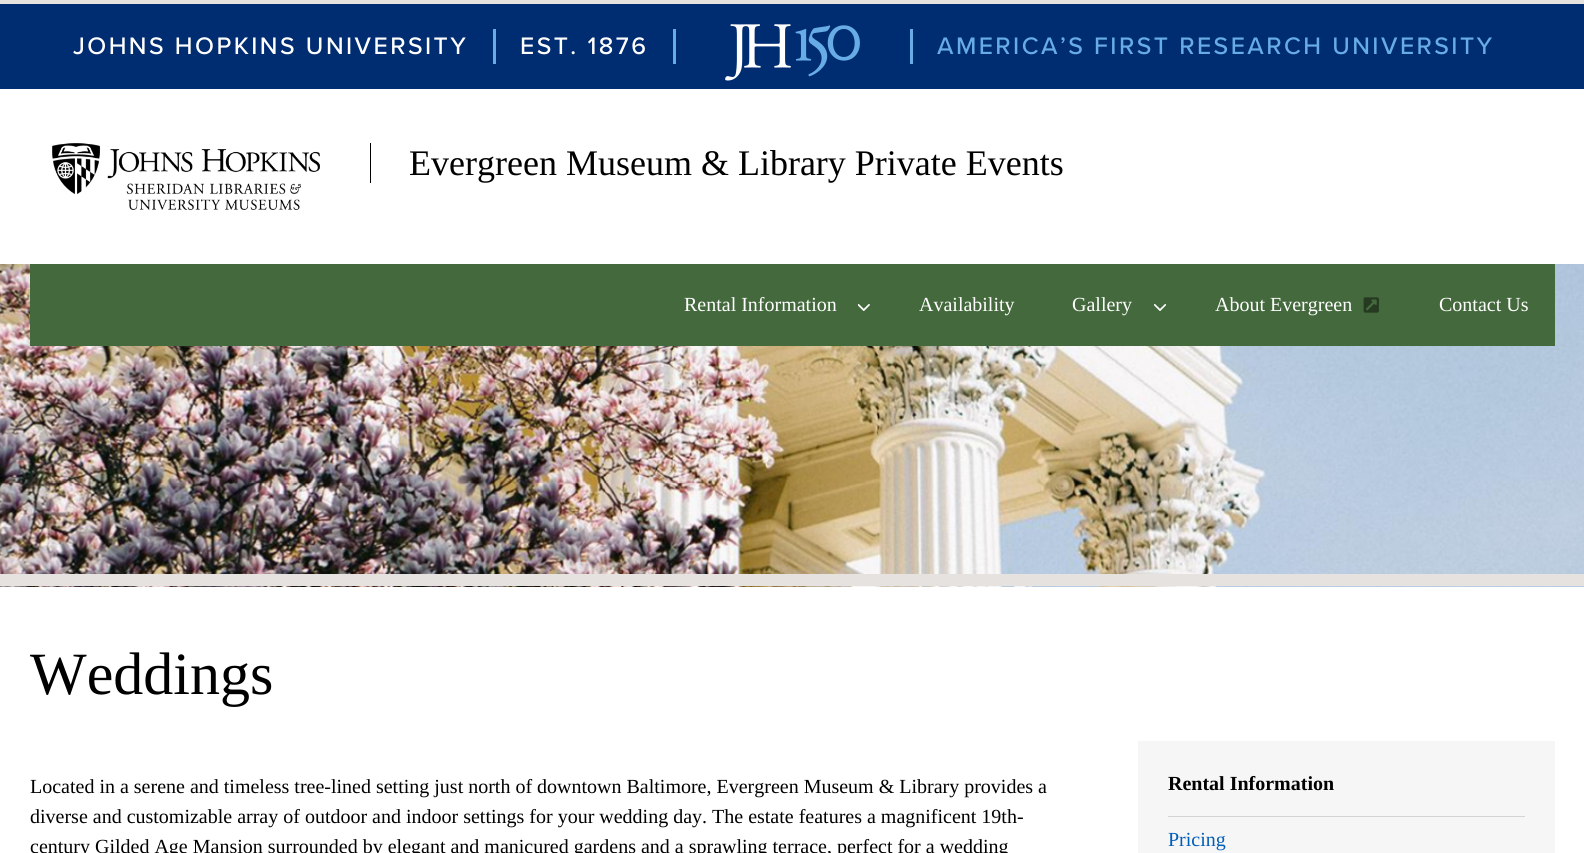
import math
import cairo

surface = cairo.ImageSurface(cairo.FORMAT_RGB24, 1584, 853)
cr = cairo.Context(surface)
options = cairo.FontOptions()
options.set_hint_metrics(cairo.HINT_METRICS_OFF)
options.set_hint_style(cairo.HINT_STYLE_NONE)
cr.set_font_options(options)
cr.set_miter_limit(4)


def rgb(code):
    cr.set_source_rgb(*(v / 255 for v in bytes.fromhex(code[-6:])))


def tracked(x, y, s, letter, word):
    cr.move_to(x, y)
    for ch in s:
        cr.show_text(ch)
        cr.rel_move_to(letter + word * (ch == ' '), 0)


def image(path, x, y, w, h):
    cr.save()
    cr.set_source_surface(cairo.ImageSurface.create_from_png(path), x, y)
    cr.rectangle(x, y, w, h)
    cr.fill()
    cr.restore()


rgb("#ffffff")
cr.paint()
for x, y, w, h, color in [
    (0, 0, 1584, 4, "#e5e2e0"),
    (0, 4, 1584, 85, "#002d72"),
    (493, 29, 3, 35, "#68ace5"),
    (673, 29, 3, 35, "#68ace5"),
]:
    rgb(color)
    cr.rectangle(x, y, w, h)
    cr.fill()
image("img/1.png", 725, 24, 135, 57)
cr.rectangle(910, 29, 3, 35)
cr.fill()
image("img/2.png", 52, 143, 268, 67)
rgb("#000000")
cr.rectangle(370, 143, 1, 40)
cr.fill()
image("img/3.png", 0, 264, 1584, 323)
rgb("#e5e2e0")
cr.rectangle(0, 574, 1584, 12)
cr.fill()
rgb("#44693d")
cr.rectangle(30, 264, 1525, 82)
cr.fill()
image("img/4.png", 858, 304, 12, 7)
image("img/5.png", 1154, 304, 12, 7)
image("img/6.png", 1363, 297, 16, 16)
rgb("#f7f6f6")
cr.rectangle(1138, 741, 417, 112)
cr.fill()
rgb("#d4d3d4")
cr.rectangle(1168, 816, 357, 1)
cr.fill()
cr.select_font_face("Proxima Nova Medium")
cr.set_font_size(24.75)
rgb("#ffffff")
tracked(73, 54, "JOHNS HOPKINS UNIVERSITY", 2.45, 0)
tracked(520, 54, "EST. 1876", 2.45, 0)
rgb("#68ace5")
tracked(937, 54, "AMERICA’S FIRST RESEARCH UNIVERSITY", 2.45, 0)
cr.select_font_face("Liberation Serif")
cr.set_font_size(36)
rgb("#000000")
cr.move_to(409, 175)
cr.show_text("Evergreen Museum & Library Private Events")
cr.set_font_size(20)
rgb("#ffffff")
for x, y, s in [
    (684, 311, "Rental Information"),
    (919, 311, "Availability"),
    (1072, 311, "Gallery"),
    (1215, 311, "About Evergreen"),
    (1439, 311, "Contact Us"),
]:
    cr.move_to(x, y)
    cr.show_text(s)
cr.set_font_size(60)
rgb("#000000")
cr.move_to(30, 694)
cr.show_text("Weddings")
cr.set_font_size(20)
for x, y, s in [
    (30, 793, "Located in a serene and timeless tree-lined setting just north of downtown Baltimore, Evergreen Museum & Library provides a"),
    (30, 823, "diverse and customizable array of outdoor and indoor settings for your wedding day. The estate features a magnificent 19th-"),
    (30, 853, "century Gilded Age Mansion surrounded by elegant and manicured gardens and a sprawling terrace, perfect for a wedding"),
]:
    cr.move_to(x, y)
    cr.show_text(s)
cr.select_font_face("Liberation Serif", cairo.FONT_SLANT_NORMAL, cairo.FONT_WEIGHT_BOLD)
cr.move_to(1168, 790)
cr.show_text("Rental Information")
cr.select_font_face("Liberation Serif")
rgb("#005eb8")
cr.move_to(1168, 846)
cr.show_text("Pricing")
surface.write_to_png("page.png")
